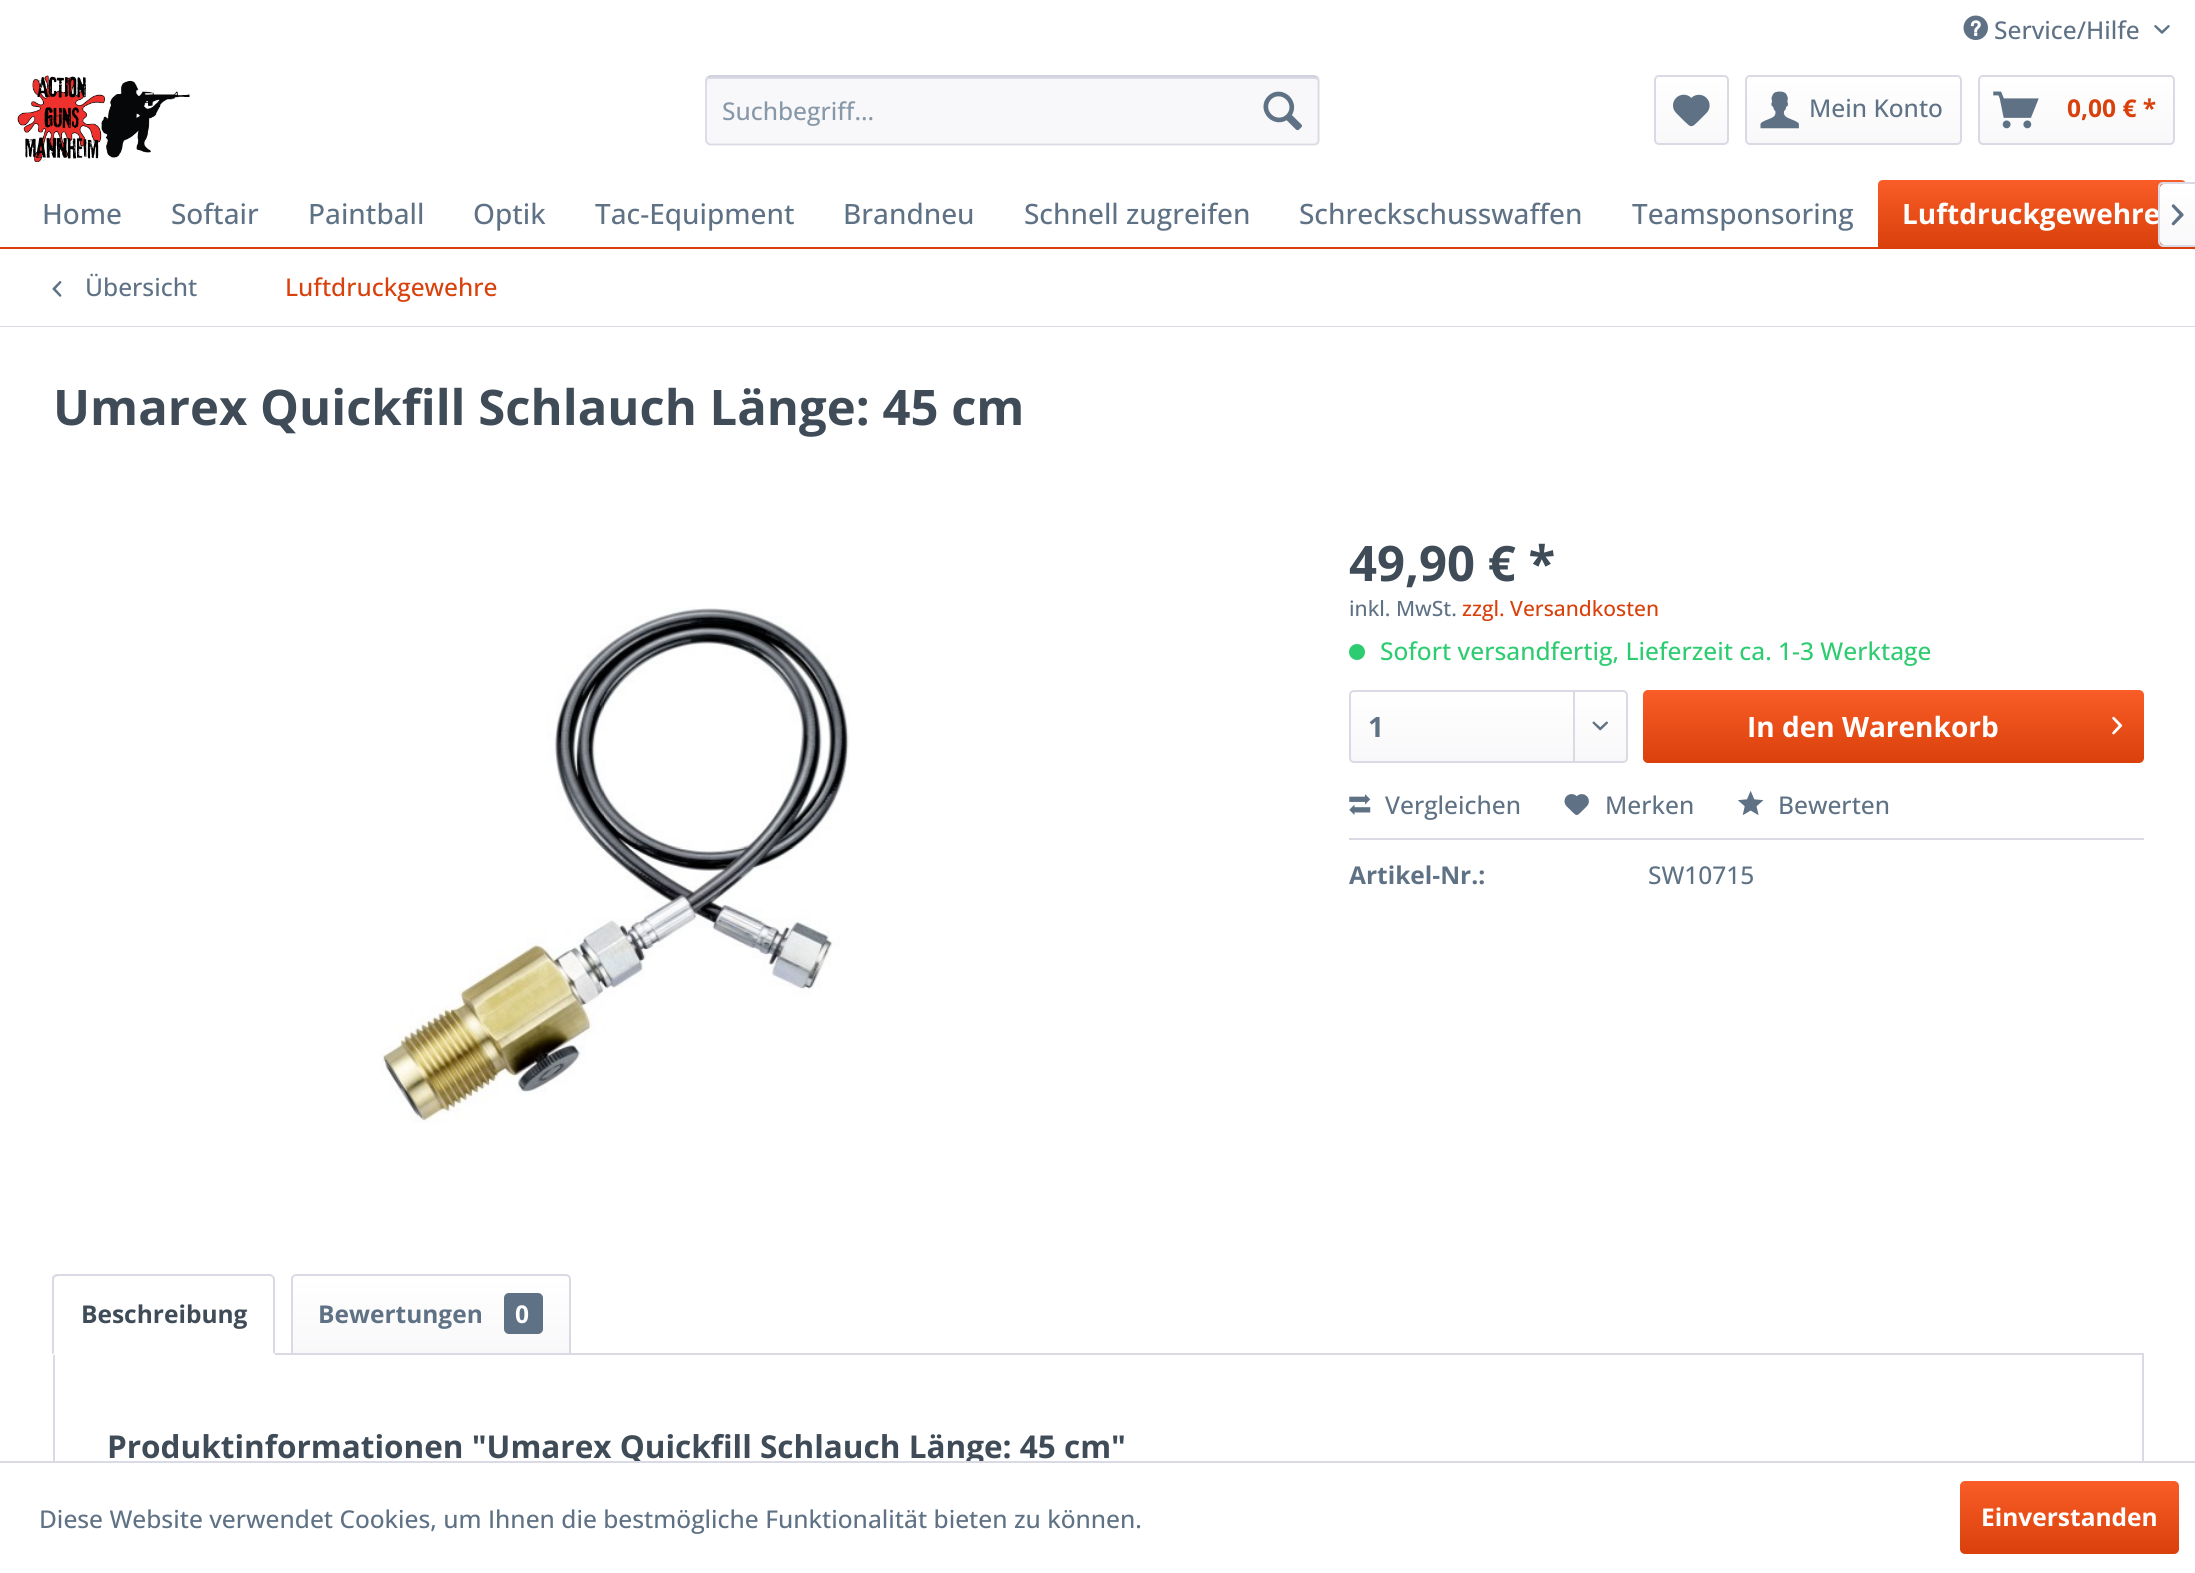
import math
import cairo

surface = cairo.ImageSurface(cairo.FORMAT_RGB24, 2195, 1573)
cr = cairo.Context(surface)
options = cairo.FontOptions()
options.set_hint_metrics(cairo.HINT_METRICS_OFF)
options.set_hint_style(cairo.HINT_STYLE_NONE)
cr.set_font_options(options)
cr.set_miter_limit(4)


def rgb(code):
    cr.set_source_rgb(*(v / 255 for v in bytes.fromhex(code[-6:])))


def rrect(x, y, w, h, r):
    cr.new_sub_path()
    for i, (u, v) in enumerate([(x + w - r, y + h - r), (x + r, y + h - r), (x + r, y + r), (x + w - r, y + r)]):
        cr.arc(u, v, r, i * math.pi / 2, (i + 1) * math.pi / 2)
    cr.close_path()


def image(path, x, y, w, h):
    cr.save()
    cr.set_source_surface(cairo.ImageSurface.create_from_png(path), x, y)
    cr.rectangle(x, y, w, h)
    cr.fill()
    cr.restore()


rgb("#ffffff")
cr.paint()
image("img/1.png", 1963, 15, 25, 25)
image("img/2.png", 2154, 25, 16, 9)
image("img/3.png", 17, 75, 173, 87)
rgb("#f8f8fa")
rrect(705, 75, 615, 70, 5)
cr.fill()
rgb("#dadae5")
cr.new_path()
cr.move_to(710, 79)
cr.line_to(1314, 79)
cr.curve_to(1316, 79, 1318, 80, 1318, 82)
cr.line_to(1318, 81)
cr.curve_to(1318, 79, 1316, 77, 1314, 77)
cr.line_to(711, 77)
cr.curve_to(709, 77, 707, 79, 707, 81)
cr.line_to(707, 82)
cr.curve_to(707, 80, 709, 79, 710, 79)
cr.close_path()
cr.fill()
cr.new_path()
cr.move_to(707.5, 77.5)
cr.line_to(710.5, 76)
cr.line_to(1314, 76)
cr.line_to(1317.5, 77.5)
rgb("#cbcbdb")
cr.set_line_width(1.8)
cr.stroke()
cr.new_path()
cr.move_to(1317.5, 77.5)
cr.curve_to(1318, 78, 1318.5, 79.5, 1318.5, 80.5)
cr.line_to(1318.5, 140)
cr.curve_to(1318.5, 141, 1318, 142.5, 1317.5, 143)
cr.curve_to(1316.5, 144, 1315.5, 144.5, 1314, 144.5)
cr.line_to(710.5, 144.5)
cr.curve_to(709.5, 144.5, 708, 144, 707.5, 143)
cr.curve_to(706.5, 142.5, 706, 141, 706, 140)
cr.line_to(706, 80.5)
cr.curve_to(706, 79.5, 706.5, 78, 707.5, 77.5)
rgb("#dadae5")
cr.stroke()
image("img/4.png", 1263, 91, 39, 40)
gradient = cairo.LinearGradient(1691, 77, 1691, 144)
gradient.add_color_stop_rgba(0, 1, 1, 1, 1)
gradient.add_color_stop_rgba(1, 0.973, 0.973, 0.98, 1)
cr.set_source(gradient)
rrect(1656, 77, 71, 67, 4)
cr.fill()
rrect(1655, 76, 73, 68, 4)
rgb("#dadae5")
cr.set_line_width(2)
cr.stroke()
image("img/5.png", 1673, 94, 37, 33)
gradient = cairo.LinearGradient(1853, 77, 1853, 144)
gradient.add_color_stop_rgba(0, 1, 1, 1, 1)
gradient.add_color_stop_rgba(1, 0.973, 0.973, 0.98, 1)
cr.set_source(gradient)
rrect(1747, 77, 213, 67, 4)
cr.fill()
rrect(1746, 76, 215, 68, 4)
rgb("#dadae5")
cr.stroke()
image("img/6.png", 1760, 91, 39, 38)
gradient = cairo.LinearGradient(2076, 77, 2076, 144)
gradient.add_color_stop_rgba(0, 1, 1, 1, 1)
gradient.add_color_stop_rgba(1, 0.973, 0.973, 0.98, 1)
cr.set_source(gradient)
rrect(1979, 77, 195, 67, 4)
cr.fill()
rrect(1979, 76, 195, 68, 4)
rgb("#dadae5")
cr.stroke()
image("img/7.png", 1993, 91, 46, 38)
rgb("#d9400b")
cr.rectangle(0, 247, 2195, 2)
cr.fill()
gradient = cairo.LinearGradient(2032, 180, 2032, 247)
gradient.add_color_stop_rgba(0, 0.98, 0.365, 0.153, 1)
gradient.add_color_stop_rgba(1, 0.851, 0.251, 0.043, 1)
cr.set_source(gradient)
cr.new_path()
cr.move_to(1883, 180)
cr.line_to(2181, 180)
cr.curve_to(2184, 180, 2186, 182, 2186, 185)
cr.line_to(2186, 247)
cr.line_to(1878, 247)
cr.line_to(1878, 185)
cr.curve_to(1878, 182, 1880, 180, 1883, 180)
cr.close_path()
cr.fill()
gradient = cairo.LinearGradient(2178, 184, 2178, 245)
gradient.add_color_stop_rgba(0, 1, 1, 1, 1)
gradient.add_color_stop_rgba(1, 0.973, 0.973, 0.98, 1)
cr.set_source(gradient)
cr.new_path()
cr.move_to(2164, 184)
cr.line_to(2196, 184)
cr.line_to(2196, 245)
cr.line_to(2164, 245)
cr.curve_to(2162, 245, 2160, 243, 2160, 241)
cr.line_to(2160, 188)
cr.curve_to(2160, 186, 2162, 184, 2164, 184)
cr.close_path()
cr.fill()
rgb("#dadae5")
cr.rectangle(0, 326, 2195, 1)
cr.fill()
image("img/9.png", 52, 281, 10, 16)
image("img/10.png", 380, 607, 470, 516)
rgb("#2ecc71")
cr.arc(1357, 652, 8, 0, 2 * math.pi)
cr.fill()
gradient = cairo.LinearGradient(1488, 691, 1488, 761)
gradient.add_color_stop_rgba(0, 1, 1, 1, 1)
gradient.add_color_stop_rgba(1, 0.973, 0.973, 0.98, 1)
cr.set_source(gradient)
rrect(1351, 691, 275, 70, 4)
cr.fill()
rrect(1350, 691, 277, 71, 4)
rgb("#dadae5")
cr.stroke()
cr.rectangle(1573, 691, 2, 70)
cr.fill()
image("img/11.png", 1592, 721, 16, 10)
gradient = cairo.LinearGradient(1894, 690, 1894, 763)
gradient.add_color_stop_rgba(0, 0.98, 0.365, 0.153, 1)
gradient.add_color_stop_rgba(1, 0.851, 0.251, 0.043, 1)
cr.set_source(gradient)
rrect(1643, 690, 501, 73, 5)
cr.fill()
image("img/12.png", 2112, 716, 11, 19)
rgb("#dadae5")
cr.rectangle(1349, 838, 795, 2)
cr.fill()
image("img/13.png", 1349, 794, 22, 21)
image("img/14.png", 1564, 794, 25, 21)
image("img/15.png", 1737, 791, 27, 25)
cr.rectangle(54, 1354, 2089, 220)
cr.stroke()
rgb("#ffffff")
cr.new_path()
cr.move_to(58, 1274)
cr.line_to(270, 1274)
cr.curve_to(273, 1274, 275, 1276, 275, 1279)
cr.line_to(275, 1355)
cr.line_to(53, 1355)
cr.line_to(53, 1279)
cr.curve_to(53, 1276, 55, 1274, 58, 1274)
cr.close_path()
cr.fill()
rgb("#dadae5")
cr.new_path()
cr.move_to(58, 1274)
cr.curve_to(56, 1274, 55, 1274, 54, 1275)
cr.line_to(55, 1277)
cr.line_to(58, 1276)
cr.line_to(270, 1276)
cr.line_to(272, 1277)
cr.line_to(273, 1275)
cr.line_to(270, 1274)
cr.close_path()
cr.fill()
cr.new_path()
cr.move_to(275, 1354)
cr.line_to(273, 1353)
cr.line_to(273, 1279)
cr.line_to(272, 1277)
cr.line_to(273, 1275)
cr.line_to(275, 1278)
cr.close_path()
cr.fill()
rgb("#ffffff")
cr.new_path()
cr.move_to(274, 1354)
cr.line_to(53, 1354)
cr.line_to(54, 1353)
cr.line_to(273, 1353)
cr.close_path()
cr.fill()
rgb("#dadae5")
cr.new_path()
cr.move_to(52, 1277)
cr.line_to(54, 1275)
cr.line_to(55, 1277)
cr.line_to(54, 1279)
cr.line_to(54, 1353)
cr.line_to(53, 1354)
cr.line_to(52, 1354)
cr.close_path()
cr.fill()
gradient = cairo.LinearGradient(431, 1276, 431, 1353)
gradient.add_color_stop_rgba(0, 1, 1, 1, 1)
gradient.add_color_stop_rgba(1, 0.973, 0.973, 0.98, 1)
cr.set_source(gradient)
cr.new_path()
cr.move_to(296, 1276)
cr.line_to(565, 1276)
cr.curve_to(567, 1276, 569, 1278, 569, 1280)
cr.line_to(569, 1353)
cr.line_to(292, 1353)
cr.line_to(292, 1280)
cr.curve_to(292, 1278, 294, 1276, 296, 1276)
cr.close_path()
cr.fill()
cr.new_path()
cr.move_to(296, 1275)
cr.line_to(566, 1275)
cr.curve_to(568, 1275, 570, 1277, 570, 1279)
cr.line_to(570, 1354)
cr.line_to(292, 1354)
cr.line_to(292, 1279)
cr.curve_to(292, 1277, 294, 1275, 296, 1275)
cr.close_path()
rgb("#dadae5")
cr.stroke()
rgb("#5f7285")
rrect(504, 1293, 39, 41, 5)
cr.fill()
cr.select_font_face("Open Sans Medium")
cr.set_font_size(24.5)
cr.move_to(1994, 39)
cr.show_text("Service/Hilfe")
rgb("#8798a9")
cr.move_to(722, 120)
cr.show_text("Suchbegriff...")
rgb("#5f7285")
cr.move_to(1809, 117)
cr.show_text("Mein Konto")
cr.select_font_face("Open Sans", cairo.FONT_SLANT_NORMAL, cairo.FONT_WEIGHT_BOLD)
rgb("#d9400b")
cr.move_to(2067, 117)
cr.show_text("0,00 € *")
cr.select_font_face("Open Sans Medium")
cr.set_font_size(28)
rgb("#5f7285")
for x, y, s in [
    (42, 224, "Home"),
    (171, 224, "Softair"),
    (308, 224, "Paintball"),
    (473, 224, "Optik"),
    (595, 224, "Tac-Equipment"),
    (843, 224, "Brandneu"),
    (1024, 224, "Schnell zugreifen"),
    (1299, 224, "Schreckschusswaffen"),
    (1632, 224, "Teamsponsoring"),
]:
    cr.move_to(x, y)
    cr.show_text(s)
cr.select_font_face("Open Sans", cairo.FONT_SLANT_NORMAL, cairo.FONT_WEIGHT_BOLD)
rgb("#ffffff")
cr.move_to(1902, 224)
cr.show_text("Luftdruckgewehre")
rgb("#dadae5")
cr.set_fill_rule(cairo.FILL_RULE_EVEN_ODD)
cr.new_path()
cr.move_to(2163, 182)
cr.line_to(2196, 182)
cr.line_to(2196, 247)
cr.line_to(2163, 247)
cr.curve_to(2160, 247, 2158, 244, 2158, 242)
cr.line_to(2158, 187)
cr.curve_to(2158, 184, 2160, 182, 2163, 182)
cr.close_path()
cr.move_to(2163, 184)
cr.line_to(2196, 184)
cr.line_to(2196, 245)
cr.line_to(2163, 245)
cr.curve_to(2161, 245, 2160, 243, 2160, 242)
cr.line_to(2160, 187)
cr.curve_to(2160, 185, 2161, 184, 2163, 184)
cr.close_path()
cr.fill()
image("img/8.png", 2171, 204, 13, 22)
cr.select_font_face("Open Sans Medium")
cr.set_font_size(24.5)
rgb("#5f7285")
cr.move_to(85, 296)
cr.show_text("Übersicht")
rgb("#d9400b")
cr.move_to(285, 296)
cr.show_text("Luftdruckgewehre")
cr.select_font_face("Open Sans", cairo.FONT_SLANT_NORMAL, cairo.FONT_WEIGHT_BOLD)
cr.set_font_size(49)
rgb("#3f4c58")
cr.move_to(53, 425)
cr.show_text("Umarex Quickfill Schlauch Länge: 45 cm")
cr.move_to(1349, 581)
cr.show_text("49,90 € *")
cr.select_font_face("Open Sans Medium")
cr.set_font_size(21)
rgb("#5f7285")
cr.move_to(1349, 616)
cr.show_text("inkl. MwSt.")
rgb("#d9400b")
cr.move_to(1462, 616)
cr.show_text("zzgl. Versandkosten")
cr.set_font_size(24.5)
rgb("#2ecc71")
cr.move_to(1380, 660)
cr.show_text("Sofort versandfertig, Lieferzeit ca. 1-3 Werktage")
cr.select_font_face("Open Sans", cairo.FONT_SLANT_NORMAL, cairo.FONT_WEIGHT_BOLD)
cr.set_font_size(28)
rgb("#5f7285")
cr.move_to(1368, 737)
cr.show_text("1")
rgb("#ffffff")
cr.move_to(1747, 737)
cr.show_text("In den Warenkorb")
cr.select_font_face("Open Sans Medium")
cr.set_font_size(24.5)
rgb("#5f7285")
for x, y, s in [
    (1385, 814, "Vergleichen"),
    (1605, 814, "Merken"),
    (1778, 814, "Bewerten"),
]:
    cr.move_to(x, y)
    cr.show_text(s)
cr.select_font_face("Open Sans", cairo.FONT_SLANT_NORMAL, cairo.FONT_WEIGHT_BOLD)
cr.move_to(1349, 884)
cr.show_text("Artikel-Nr.:")
cr.select_font_face("Open Sans Medium")
cr.move_to(1648, 884)
cr.show_text("SW10715")
cr.select_font_face("Open Sans", cairo.FONT_SLANT_NORMAL, cairo.FONT_WEIGHT_BOLD)
rgb("#3f4c58")
cr.move_to(81, 1323)
cr.show_text("Beschreibung")
rgb("#5f7285")
cr.move_to(318, 1323)
cr.show_text("Bewertungen")
rgb("#ffffff")
cr.move_to(515, 1323)
cr.show_text("0")
cr.set_font_size(31.5)
rgb("#3f4c58")
cr.move_to(107, 1458)
cr.show_text("Produktinformationen \"Umarex Quickfill Schlauch Länge: 45 cm\"")
rgb("#ffffff")
cr.rectangle(53, 1463, 2091, 110)
cr.fill()
rgb("#dadae5")
cr.rectangle(0, 1461, 2195, 2)
cr.fill()
cr.select_font_face("Open Sans Medium")
cr.set_font_size(24.5)
rgb("#5f7285")
cr.move_to(39, 1528)
cr.show_text("Diese Website verwendet Cookies, um Ihnen die bestmögliche Funktionalität bieten zu können.")
gradient = cairo.LinearGradient(2069, 1481, 2069, 1554)
gradient.add_color_stop_rgba(0, 0.98, 0.365, 0.153, 1)
gradient.add_color_stop_rgba(1, 0.851, 0.251, 0.043, 1)
cr.set_source(gradient)
rrect(1960, 1481, 219, 73, 5)
cr.fill()
cr.select_font_face("Open Sans", cairo.FONT_SLANT_NORMAL, cairo.FONT_WEIGHT_BOLD)
rgb("#ffffff")
cr.move_to(1981, 1526)
cr.show_text("Einverstanden")
surface.write_to_png("page.png")
